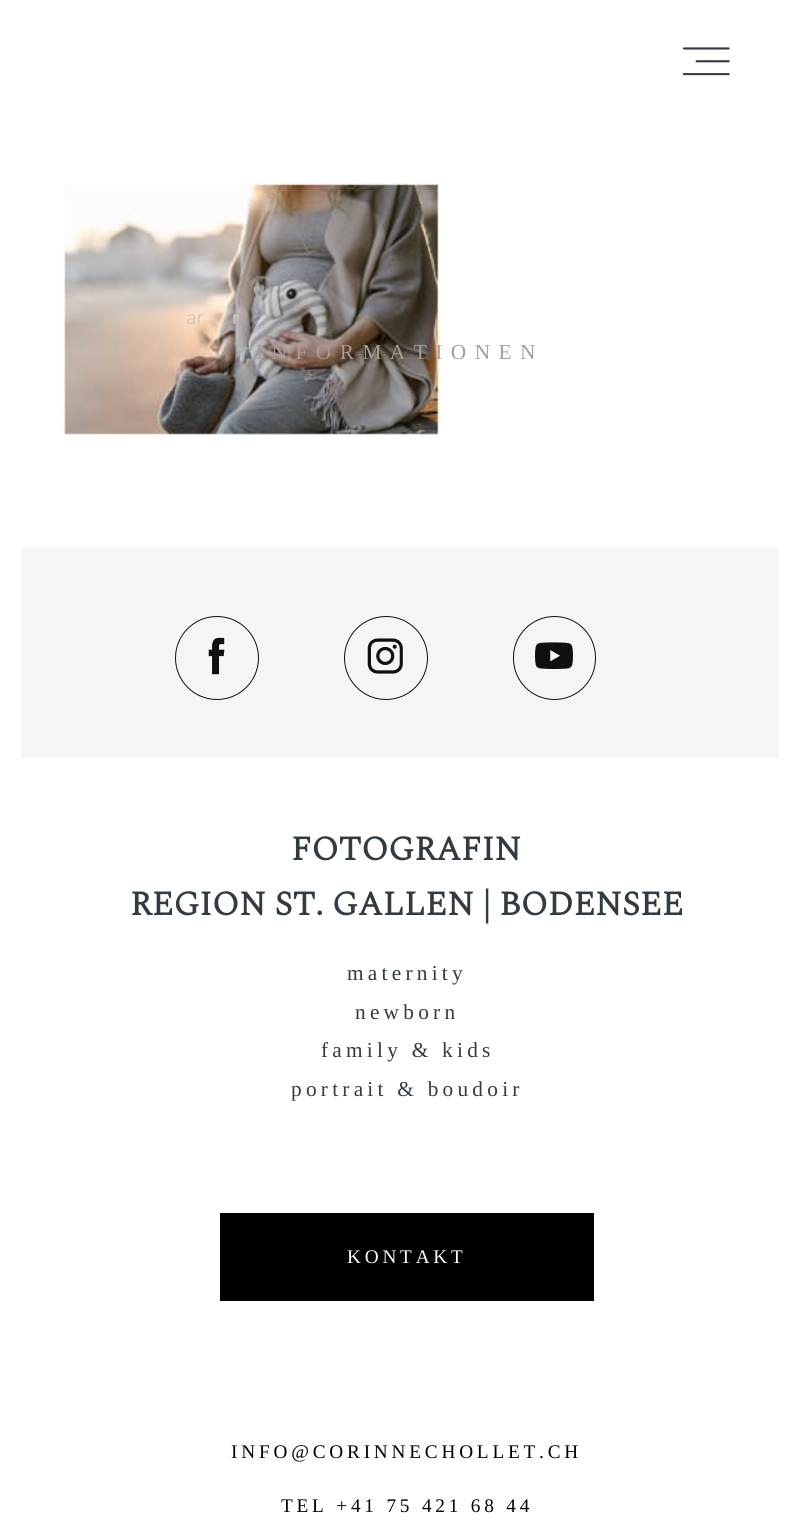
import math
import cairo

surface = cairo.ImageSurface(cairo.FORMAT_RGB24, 800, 1534)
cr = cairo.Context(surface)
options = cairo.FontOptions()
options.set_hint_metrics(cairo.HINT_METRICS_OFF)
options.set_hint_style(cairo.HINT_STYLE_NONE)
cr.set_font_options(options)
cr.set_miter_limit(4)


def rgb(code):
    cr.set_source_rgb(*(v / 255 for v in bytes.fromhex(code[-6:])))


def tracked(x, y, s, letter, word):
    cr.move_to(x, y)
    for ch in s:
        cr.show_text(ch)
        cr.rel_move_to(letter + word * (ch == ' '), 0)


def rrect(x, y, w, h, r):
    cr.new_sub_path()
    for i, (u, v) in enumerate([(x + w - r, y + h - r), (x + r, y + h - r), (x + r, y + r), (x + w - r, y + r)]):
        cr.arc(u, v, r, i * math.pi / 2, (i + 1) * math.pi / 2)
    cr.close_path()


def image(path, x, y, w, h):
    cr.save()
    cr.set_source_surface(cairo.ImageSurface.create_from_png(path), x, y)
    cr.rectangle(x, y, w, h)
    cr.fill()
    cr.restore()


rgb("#ffffff")
cr.paint()
rgb("#f5f6f4")
cr.rectangle(21, 548, 758, 210)
cr.fill()
image("img/1.png", 682, 47, 48, 29)
image("img/2.png", 63, 183, 376, 252)
cr.arc(217, 658, 41.5, 0, 2 * math.pi)
rgb("#10100f")
cr.set_line_width(1)
cr.stroke()
image("img/3.png", 208, 637, 17, 38)
cr.arc(386, 658, 41.5, 0, 2 * math.pi)
cr.stroke()
image("img/4.png", 367, 638, 36, 36)
rrect(513.5, 616.5, 82, 83, 41)
cr.stroke()
image("img/5.png", 535, 642, 38, 27)
rgb("#000000")
cr.rectangle(220, 1213, 374, 88)
cr.fill()
cr.select_font_face("Nunito Sans ExtraLight")
cr.set_font_size(20)
rgb("#dcc7b7")
cr.move_to(186, 324)
cr.show_text("ar")
cr.move_to(232, 324)
cr.show_text("r")
cr.select_font_face("Liberation Serif")
cr.set_font_size(21.3)
rgb("#a69c95")
tracked(256, 359, "INFORMATIONEN", 8.5, 0)
cr.select_font_face("Spectral", cairo.FONT_SLANT_NORMAL, cairo.FONT_WEIGHT_BOLD)
cr.set_font_size(34.1)
rgb("#313b41")
cr.move_to(291, 860)
cr.show_text("FOTOGRAFIN")
cr.move_to(130, 915)
cr.show_text("REGION ST. GALLEN | BODENSEE")
cr.select_font_face("Liberation Serif")
cr.set_font_size(21.3)
for x, y, s in [
    (347, 980, "maternity"),
    (355, 1019, "newborn"),
    (321, 1057, "family & kids"),
    (291, 1096, "portrait & boudoir"),
]:
    tracked(x, y, s, 4.25, 0)
cr.set_font_size(19.25)
rgb("#ffffff")
tracked(347, 1263, "KONTAKT", 3.8, 0)
rgb("#000000")
tracked(231, 1458, "INFO@CORINNECHOLLET.CH", 3.8, 0)
tracked(281, 1512, "TEL +41 75 421 68 44", 3.8, 0)
surface.write_to_png("page.png")
